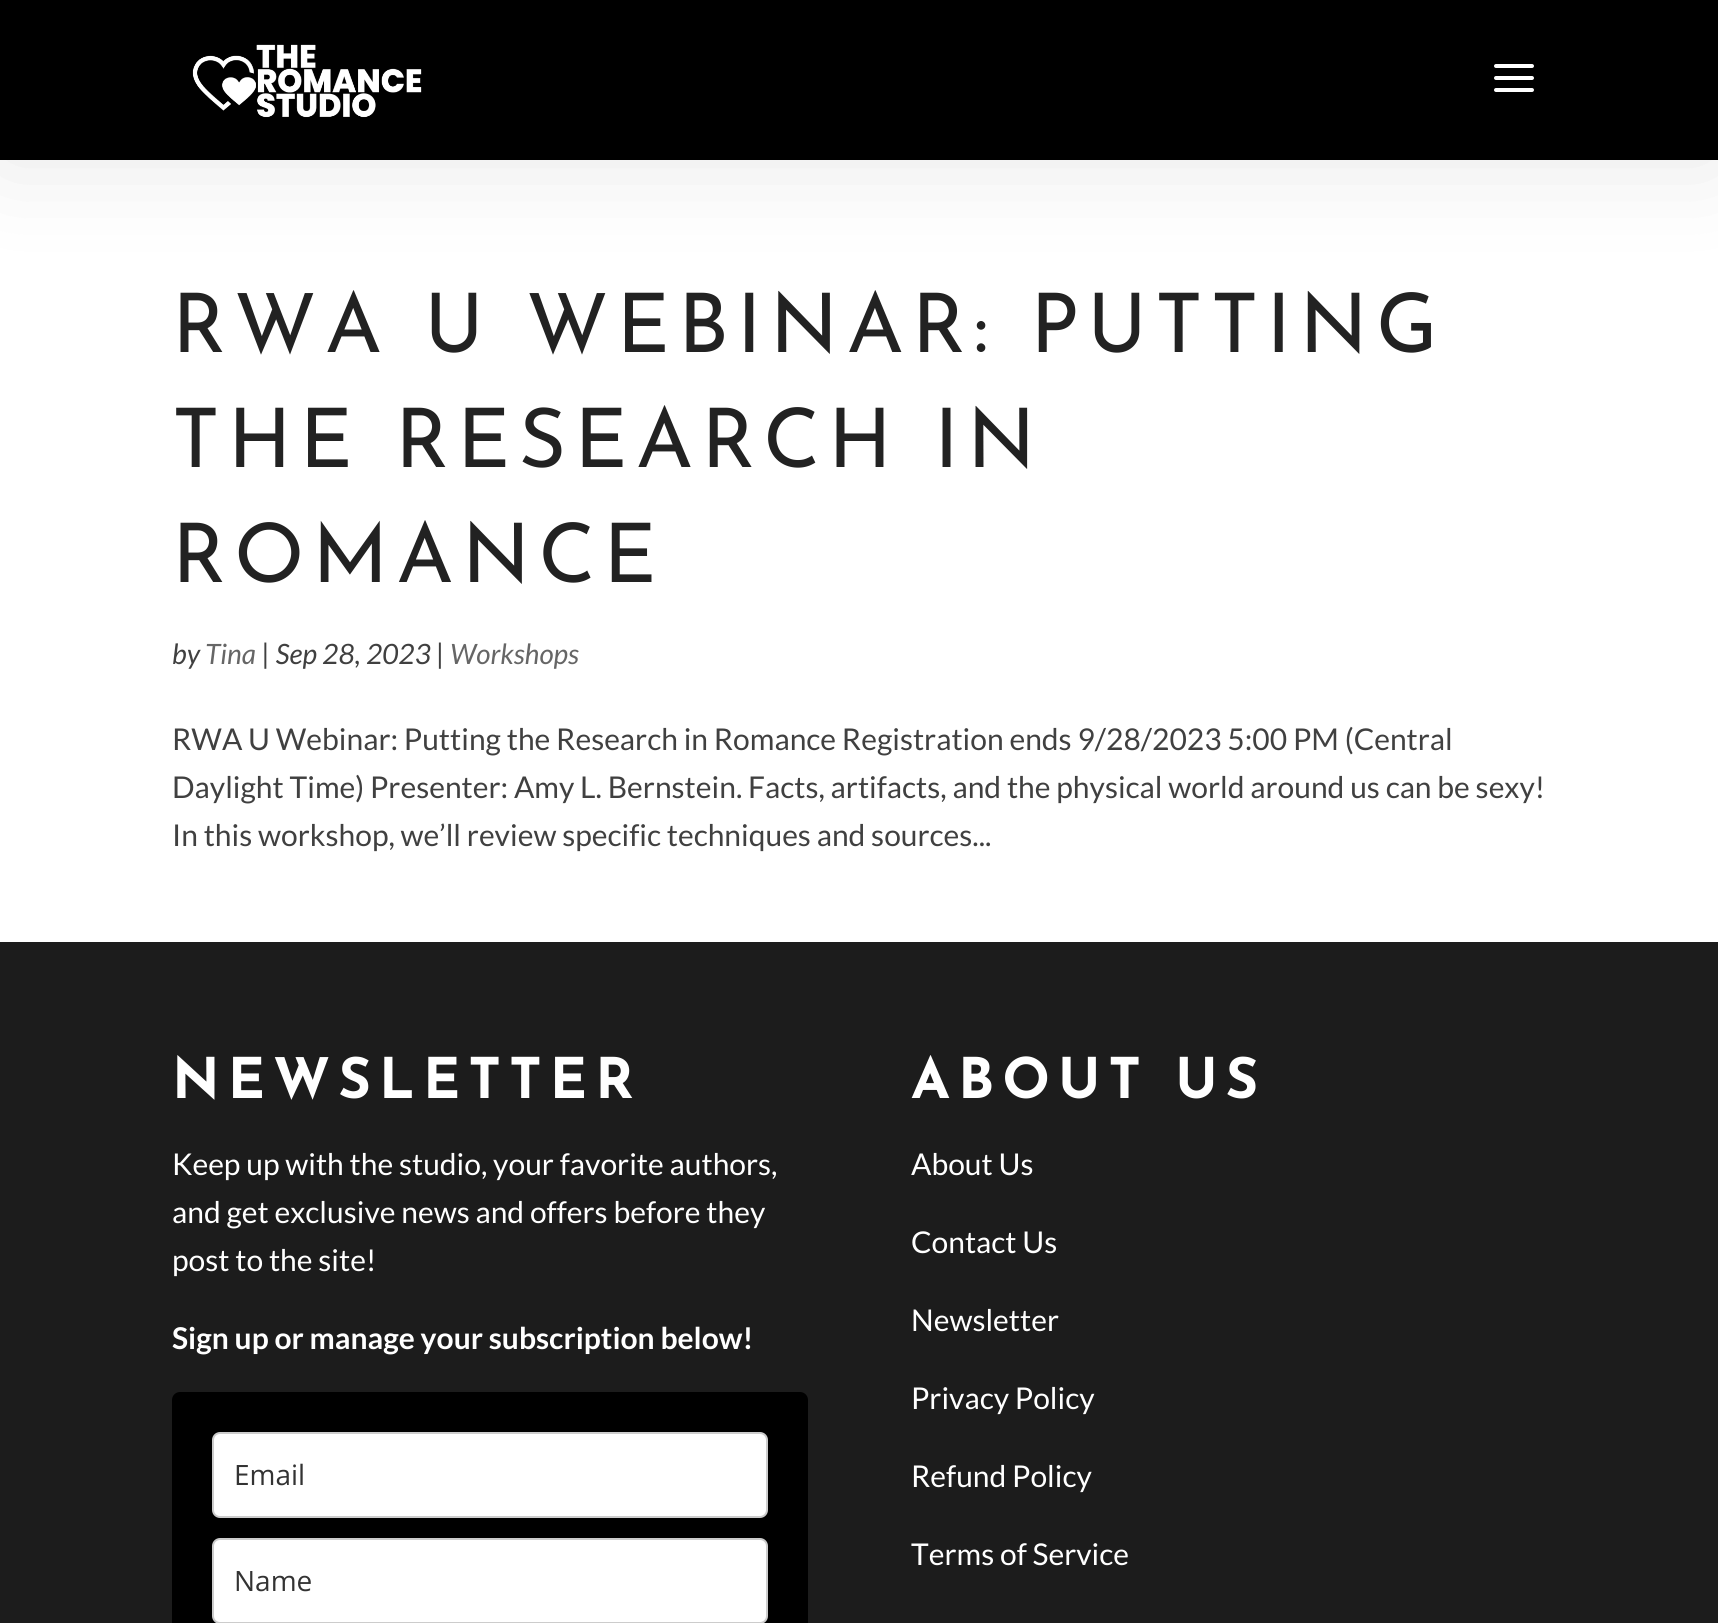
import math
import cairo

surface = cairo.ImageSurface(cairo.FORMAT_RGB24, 1718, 1623)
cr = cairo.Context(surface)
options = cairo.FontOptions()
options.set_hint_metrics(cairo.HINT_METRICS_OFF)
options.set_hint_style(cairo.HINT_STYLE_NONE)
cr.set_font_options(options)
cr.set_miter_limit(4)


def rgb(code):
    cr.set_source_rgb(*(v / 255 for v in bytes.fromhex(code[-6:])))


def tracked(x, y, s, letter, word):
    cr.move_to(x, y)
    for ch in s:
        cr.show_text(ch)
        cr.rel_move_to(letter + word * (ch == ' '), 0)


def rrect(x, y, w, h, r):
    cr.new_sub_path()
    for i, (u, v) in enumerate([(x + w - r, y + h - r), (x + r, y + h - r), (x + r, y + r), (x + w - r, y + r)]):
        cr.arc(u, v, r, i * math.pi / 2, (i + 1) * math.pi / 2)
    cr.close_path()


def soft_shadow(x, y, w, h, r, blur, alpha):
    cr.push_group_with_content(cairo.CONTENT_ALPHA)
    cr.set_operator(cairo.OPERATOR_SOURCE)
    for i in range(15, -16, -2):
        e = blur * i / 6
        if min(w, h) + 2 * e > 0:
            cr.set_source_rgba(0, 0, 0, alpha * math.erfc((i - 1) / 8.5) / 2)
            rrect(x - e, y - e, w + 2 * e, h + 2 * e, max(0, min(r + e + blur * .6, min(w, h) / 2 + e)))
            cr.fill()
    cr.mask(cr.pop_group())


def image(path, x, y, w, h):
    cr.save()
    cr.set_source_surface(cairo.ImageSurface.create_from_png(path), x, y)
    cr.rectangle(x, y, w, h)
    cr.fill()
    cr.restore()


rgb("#ffffff")
cr.paint()
rgb("#000000")
soft_shadow(0, 0, 1718, 160, 0, 50, 0.1)
rgb("#000000")
cr.rectangle(0, 0, 1718, 160)
cr.fill()
image("img/1.png", 192, 44, 230, 74)
image("img/2.png", 1494, 64, 40, 28)
rgb("#1c1c1c")
cr.rectangle(0, 942, 1718, 681)
cr.fill()
rgb("#000000")
rrect(172, 1392, 636, 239, 8)
cr.fill()
rgb("#ffffff")
rrect(213, 1433, 554, 84, 7)
cr.fill_preserve()
rgb("#cccccc")
cr.stroke()
rgb("#ffffff")
rrect(213, 1539, 554, 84, 7)
cr.fill_preserve()
rgb("#cccccc")
cr.stroke()
cr.select_font_face("Josefin Sans")
cr.set_font_size(82)
rgb("#222222")
for x, y, s in [
    (172, 352, "RWA U WEBINAR: PUTTING"),
    (172, 467, "THE RESEARCH IN"),
    (172, 582, "ROMANCE"),
]:
    tracked(x, y, s, 8, 0)
cr.select_font_face("Lato", cairo.FONT_SLANT_ITALIC)
cr.set_font_size(28)
rgb("#404040")
cr.move_to(172, 664)
cr.show_text("by")
rgb("#666666")
cr.move_to(205, 664)
cr.show_text("Tina")
rgb("#404040")
cr.move_to(262, 664)
cr.show_text("| Sep 28, 2023 |")
rgb("#666666")
cr.move_to(450, 664)
cr.show_text("Workshops")
cr.select_font_face("Lato")
cr.set_font_size(30)
rgb("#404040")
for x, y, s in [
    (172, 750, "RWA U Webinar: Putting the Research in Romance Registration ends 9/28/2023 5:00 PM (Central"),
    (172, 798, "Daylight Time) Presenter: Amy L. Bernstein. Facts, artifacts, and the physical world around us can be sexy!"),
    (172, 846, "In this workshop, we’ll review specific techniques and sources..."),
]:
    cr.move_to(x, y)
    cr.show_text(s)
cr.select_font_face("Josefin Sans", cairo.FONT_SLANT_NORMAL, cairo.FONT_WEIGHT_BOLD)
cr.set_font_size(56)
rgb("#ffffff")
tracked(172, 1098, "NEWSLETTER", 8, 0)
cr.select_font_face("Lato")
cr.set_font_size(30)
for x, y, s in [
    (172, 1175, "Keep up with the studio, your favorite authors,"),
    (172, 1223, "and get exclusive news and offers before they"),
    (172, 1271, "post to the site!"),
]:
    cr.move_to(x, y)
    cr.show_text(s)
cr.select_font_face("Lato", cairo.FONT_SLANT_NORMAL, cairo.FONT_WEIGHT_BOLD)
cr.move_to(172, 1349)
cr.show_text("Sign up or manage your subscription below!")
cr.select_font_face("Open Sans")
cr.set_font_size(28)
rgb("#333333")
cr.move_to(234, 1485)
cr.show_text("Email")
cr.move_to(234, 1591)
cr.show_text("Name")
cr.select_font_face("Josefin Sans", cairo.FONT_SLANT_NORMAL, cairo.FONT_WEIGHT_BOLD)
cr.set_font_size(56)
rgb("#ffffff")
tracked(911, 1098, "ABOUT US", 8, 0)
cr.select_font_face("Lato")
cr.set_font_size(30)
for x, y, s in [
    (911, 1175, "About Us"),
    (911, 1253, "Contact Us"),
    (911, 1331, "Newsletter"),
    (911, 1409, "Privacy Policy"),
    (911, 1487, "Refund Policy"),
    (911, 1565, "Terms of Service"),
]:
    cr.move_to(x, y)
    cr.show_text(s)
surface.write_to_png("page.png")
